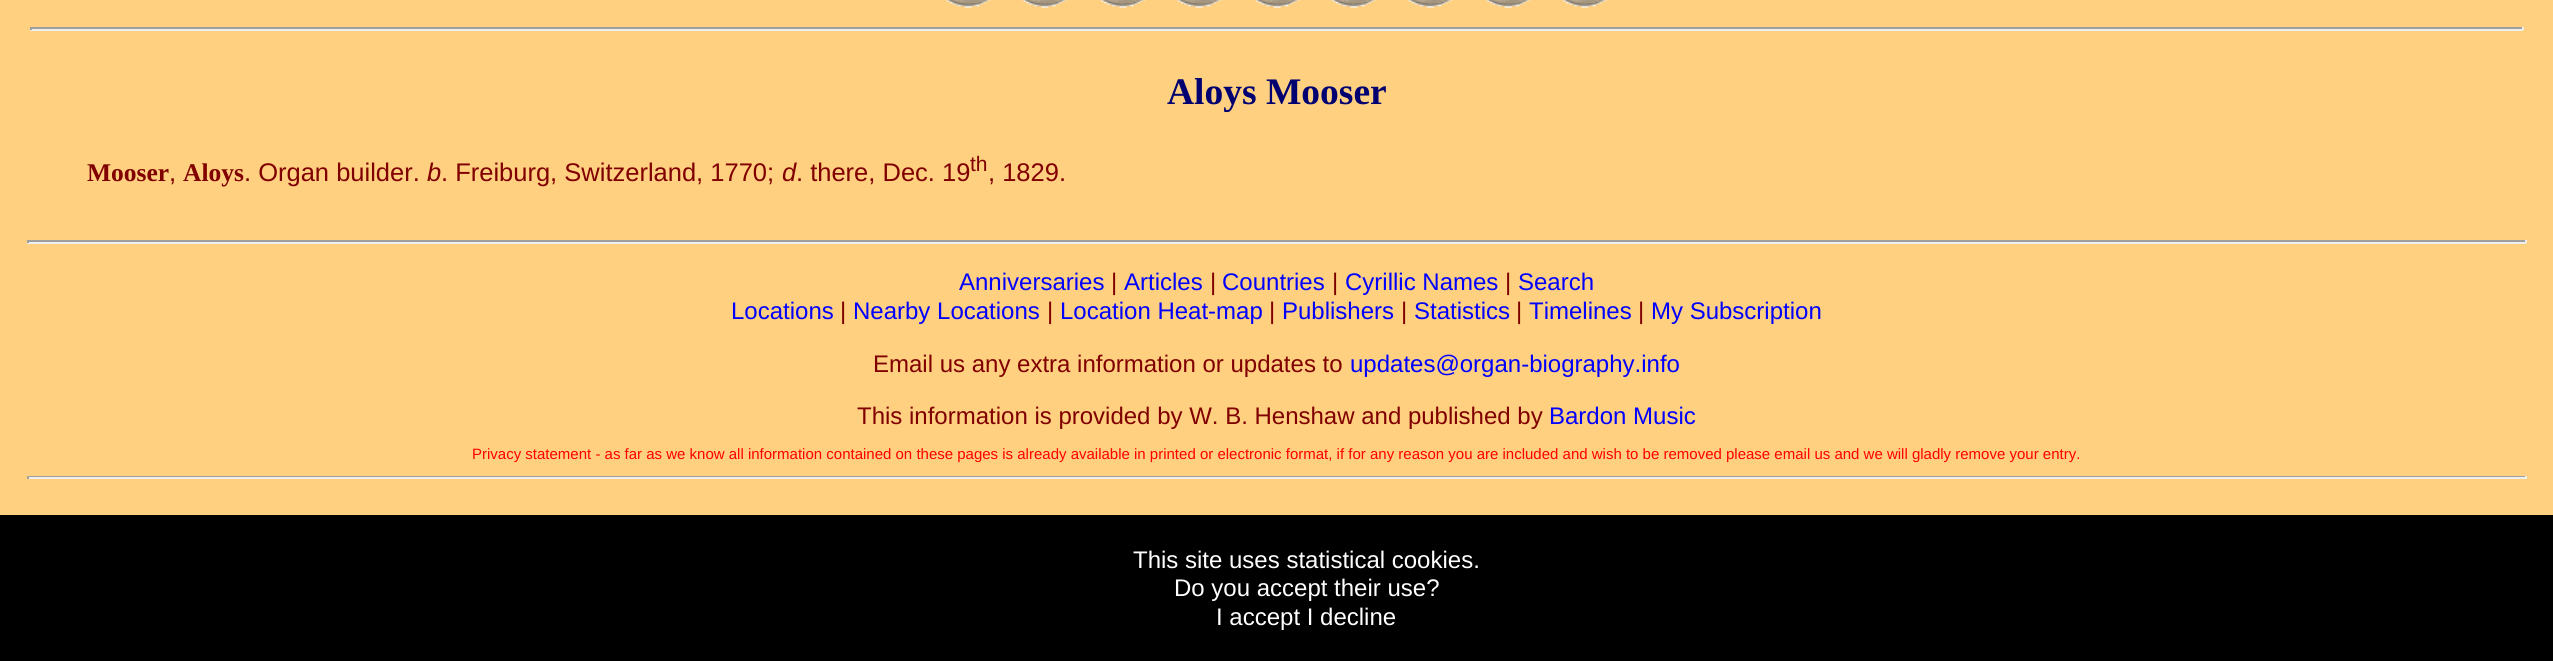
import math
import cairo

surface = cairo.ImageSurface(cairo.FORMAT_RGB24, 2553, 661)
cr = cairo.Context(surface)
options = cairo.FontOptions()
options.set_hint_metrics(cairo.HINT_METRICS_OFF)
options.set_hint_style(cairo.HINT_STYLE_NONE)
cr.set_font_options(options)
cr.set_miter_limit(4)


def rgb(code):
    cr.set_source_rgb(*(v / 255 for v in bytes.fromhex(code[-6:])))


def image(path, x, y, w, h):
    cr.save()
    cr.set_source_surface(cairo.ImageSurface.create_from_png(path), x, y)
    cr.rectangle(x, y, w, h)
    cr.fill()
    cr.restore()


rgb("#ffd080")
cr.paint()
image("img/1.png", 945, 0, 46, 8)
image("img/2.png", 1022, 0, 46, 8)
image("img/3.png", 1100, 0, 46, 8)
image("img/4.png", 1176, 0, 46, 8)
image("img/5.png", 1254, 0, 46, 8)
image("img/6.png", 1331, 0, 46, 8)
image("img/7.png", 1407, 0, 46, 8)
image("img/8.png", 1485, 0, 46, 8)
image("img/9.png", 1562, 0, 46, 8)
for x, y, w, h, color in [
    (30, 27, 2493, 2, "#9f9f9f"),
    (2522, 27, 2, 3, "#eeeeee"),
    (30, 29, 2493, 2, "#eeeeee"),
    (30, 27, 2, 3, "#9f9f9f"),
    (27, 240, 2499, 2, "#9f9f9f"),
    (2525, 240, 2, 3, "#eeeeee"),
    (27, 242, 2499, 2, "#eeeeee"),
    (27, 240, 2, 3, "#9f9f9f"),
    (27, 476, 2499, 1, "#9f9f9f"),
    (2525, 476, 2, 3, "#eeeeee"),
    (27, 477, 2499, 2, "#eeeeee"),
    (27, 476, 2, 3, "#9f9f9f"),
    (0, 515, 2553, 146, "#000000"),
]:
    rgb(color)
    cr.rectangle(x, y, w, h)
    cr.fill()
cr.select_font_face("Liberation Serif", cairo.FONT_SLANT_NORMAL, cairo.FONT_WEIGHT_BOLD)
cr.set_font_size(37.5)
rgb("#000070")
cr.move_to(1167, 104)
cr.show_text("Aloys Mooser")
cr.set_font_size(25.5)
rgb("#800000")
cr.move_to(87, 181)
cr.show_text("Mooser")
cr.select_font_face("Liberation Sans")
cr.move_to(169, 181)
cr.show_text(",")
cr.select_font_face("Liberation Serif", cairo.FONT_SLANT_NORMAL, cairo.FONT_WEIGHT_BOLD)
cr.move_to(183, 181)
cr.show_text("Aloys")
cr.select_font_face("Liberation Sans")
cr.move_to(244, 181)
cr.show_text(". Organ builder.")
cr.select_font_face("Liberation Sans", cairo.FONT_SLANT_ITALIC)
cr.move_to(427, 181)
cr.show_text("b")
cr.select_font_face("Liberation Sans")
cr.move_to(441, 181)
cr.show_text(". Freiburg, Switzerland, 1770;")
cr.select_font_face("Liberation Sans", cairo.FONT_SLANT_ITALIC)
cr.move_to(782, 181)
cr.show_text("d")
cr.select_font_face("Liberation Sans")
cr.move_to(796, 181)
cr.show_text(". there, Dec. 19")
cr.set_font_size(21)
cr.move_to(970, 171)
cr.show_text("th")
cr.set_font_size(25.5)
cr.move_to(988, 181)
cr.show_text(", 1829.")
cr.set_font_size(24)
rgb("#0000ff")
cr.move_to(959, 290)
cr.show_text("Anniversaries")
rgb("#800000")
cr.move_to(1111, 290)
cr.show_text("|")
rgb("#0000ff")
cr.move_to(1124, 290)
cr.show_text("Articles")
rgb("#800000")
cr.move_to(1210, 290)
cr.show_text("|")
rgb("#0000ff")
cr.move_to(1222, 290)
cr.show_text("Countries")
rgb("#800000")
cr.move_to(1332, 290)
cr.show_text("|")
rgb("#0000ff")
cr.move_to(1345, 290)
cr.show_text("Cyrillic Names")
rgb("#800000")
cr.move_to(1505, 290)
cr.show_text("|")
rgb("#0000ff")
cr.move_to(1518, 290)
cr.show_text("Search")
cr.move_to(731, 319)
cr.show_text("Locations")
rgb("#800000")
cr.move_to(840, 319)
cr.show_text("|")
rgb("#0000ff")
cr.move_to(853, 319)
cr.show_text("Nearby Locations")
rgb("#800000")
cr.move_to(1047, 319)
cr.show_text("|")
rgb("#0000ff")
cr.move_to(1060, 319)
cr.show_text("Location Heat-map")
rgb("#800000")
cr.move_to(1269, 319)
cr.show_text("|")
rgb("#0000ff")
cr.move_to(1282, 319)
cr.show_text("Publishers")
rgb("#800000")
cr.move_to(1401, 319)
cr.show_text("|")
rgb("#0000ff")
cr.move_to(1414, 319)
cr.show_text("Statistics")
rgb("#800000")
cr.move_to(1516, 319)
cr.show_text("|")
rgb("#0000ff")
cr.move_to(1529, 319)
cr.show_text("Timelines")
rgb("#800000")
cr.move_to(1638, 319)
cr.show_text("|")
rgb("#0000ff")
cr.move_to(1651, 319)
cr.show_text("My Subscription")
rgb("#800000")
cr.move_to(873, 372)
cr.show_text("Email us any extra information or updates to")
rgb("#0000ff")
cr.move_to(1350, 372)
cr.show_text("updates@organ-biography.info")
rgb("#800000")
cr.move_to(857, 424)
cr.show_text("This information is provided by W. B. Henshaw and published by")
rgb("#0000ff")
cr.move_to(1549, 424)
cr.show_text("Bardon Music")
cr.set_font_size(15)
rgb("#ff0000")
cr.move_to(472, 459)
cr.show_text("Privacy statement - as far as we know all information contained on these pages is already available in printed or electronic format, if for any reason you are included and wish to be removed please email us and we will gladly remove your entry.")
cr.set_font_size(24)
rgb("#ffffff")
for x, y, s in [
    (1133, 568, "This site uses statistical cookies."),
    (1174, 596, "Do you accept their use?"),
    (1216, 625, "I accept I decline"),
]:
    cr.move_to(x, y)
    cr.show_text(s)
surface.write_to_png("page.png")
